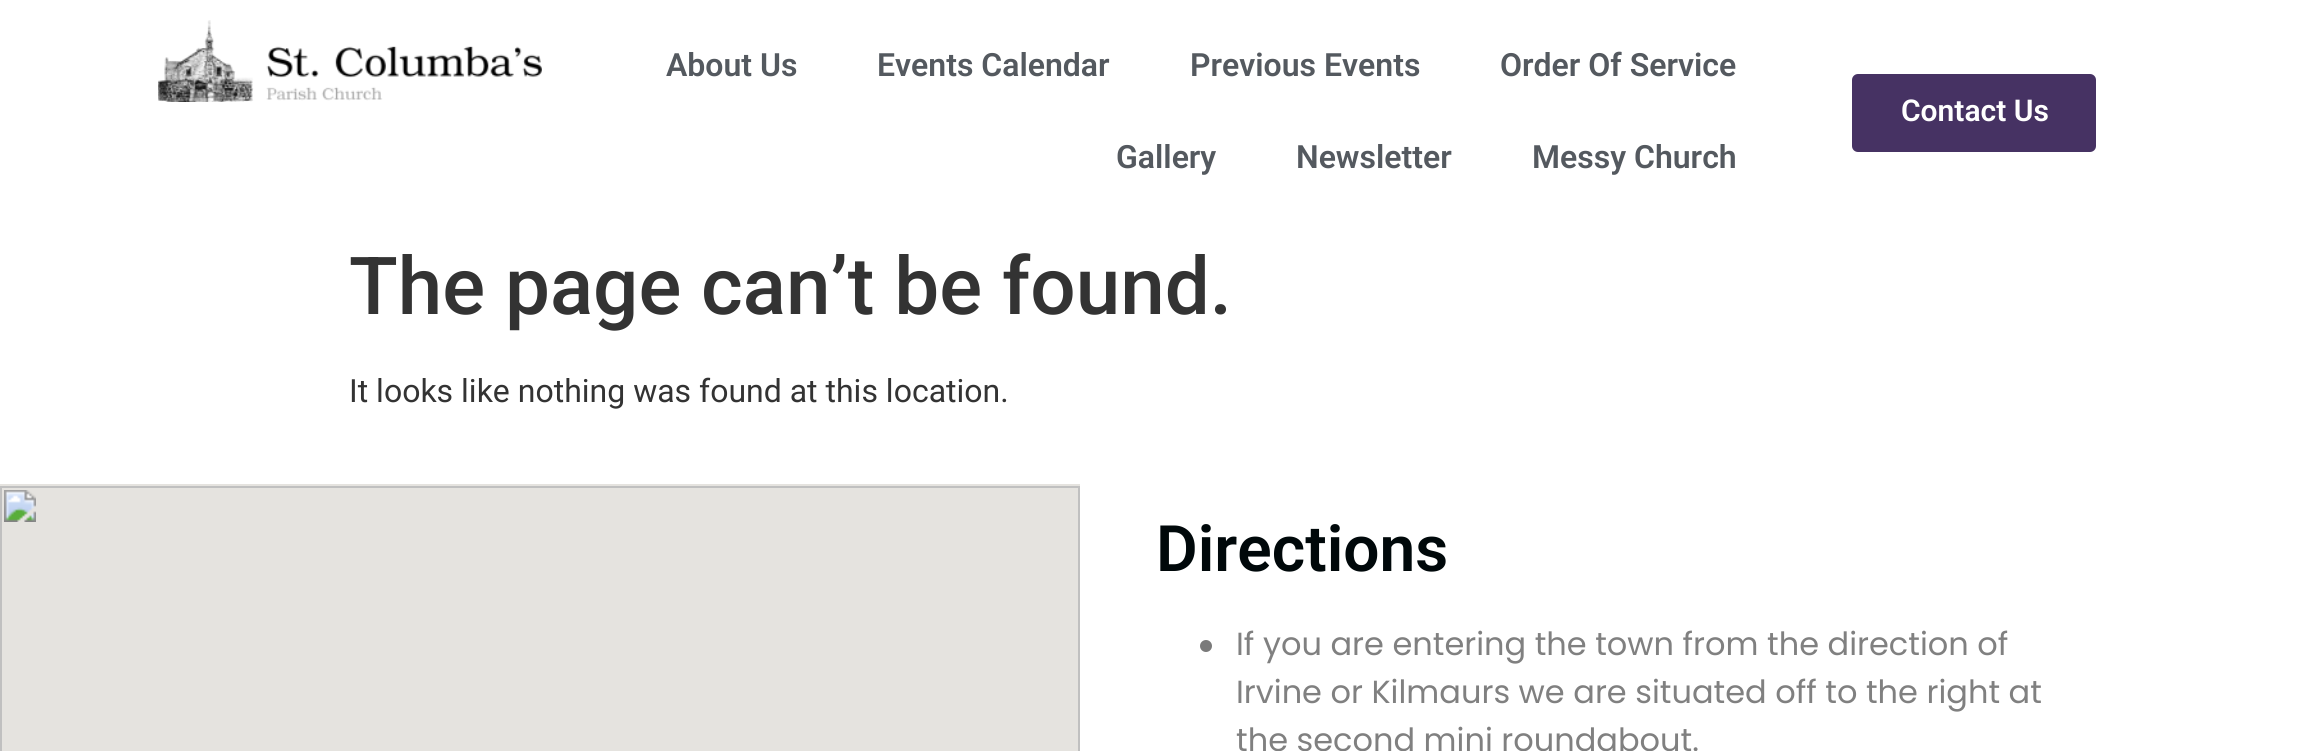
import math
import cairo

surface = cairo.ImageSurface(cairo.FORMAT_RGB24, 2298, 751)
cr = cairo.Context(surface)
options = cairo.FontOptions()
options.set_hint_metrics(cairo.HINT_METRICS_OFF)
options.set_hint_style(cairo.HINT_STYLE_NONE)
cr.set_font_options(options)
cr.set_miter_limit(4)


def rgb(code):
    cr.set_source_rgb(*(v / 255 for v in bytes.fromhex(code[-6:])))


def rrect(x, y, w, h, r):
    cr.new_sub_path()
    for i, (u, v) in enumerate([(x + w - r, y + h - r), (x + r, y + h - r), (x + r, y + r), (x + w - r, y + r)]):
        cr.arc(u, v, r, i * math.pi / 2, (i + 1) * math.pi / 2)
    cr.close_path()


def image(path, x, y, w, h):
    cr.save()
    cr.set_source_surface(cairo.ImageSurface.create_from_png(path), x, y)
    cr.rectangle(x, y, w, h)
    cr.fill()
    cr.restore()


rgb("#ffffff")
cr.paint()
image("img/1.png", 158, 20, 384, 82)
rgb("#463263")
rrect(1852, 74, 244, 78, 6)
cr.fill()
image("img/2.png", 0, 484, 1080, 267)
rgb("#7a7a7a")
cr.arc(1206, 646, 6, 0, 2 * math.pi)
cr.fill()
cr.select_font_face("Roboto SemiBold")
cr.set_font_size(32)
rgb("#54595f")
for x, y, s in [
    (666, 76, "About Us"),
    (877, 76, "Events Calendar"),
    (1190, 76, "Previous Events"),
    (1500, 76, "Order Of Service"),
    (1116, 168, "Gallery"),
    (1296, 168, "Newsletter"),
    (1532, 168, "Messy Church"),
]:
    cr.move_to(x, y)
    cr.show_text(s)
cr.set_font_size(30)
rgb("#ffffff")
cr.move_to(1901, 121)
cr.show_text("Contact Us")
cr.select_font_face("Roboto Medium")
cr.set_font_size(80)
rgb("#333333")
cr.move_to(349, 314)
cr.show_text("The page can’t be found.")
cr.select_font_face("Roboto")
cr.set_font_size(32)
cr.move_to(349, 402)
cr.show_text("It looks like nothing was found at this location.")
cr.select_font_face("Roboto SemiBold")
cr.set_font_size(64)
rgb("#00080a")
cr.move_to(1156, 571)
cr.show_text("Directions")
cr.select_font_face("Poppins")
cr.set_font_size(32)
rgb("#808080")
for x, y, s in [
    (1236, 655, "If you are entering the town from the direction of"),
    (1236, 703, "Irvine or Kilmaurs we are situated off to the right at"),
    (1236, 751, "the second mini roundabout."),
]:
    cr.move_to(x, y)
    cr.show_text(s)
surface.write_to_png("page.png")
